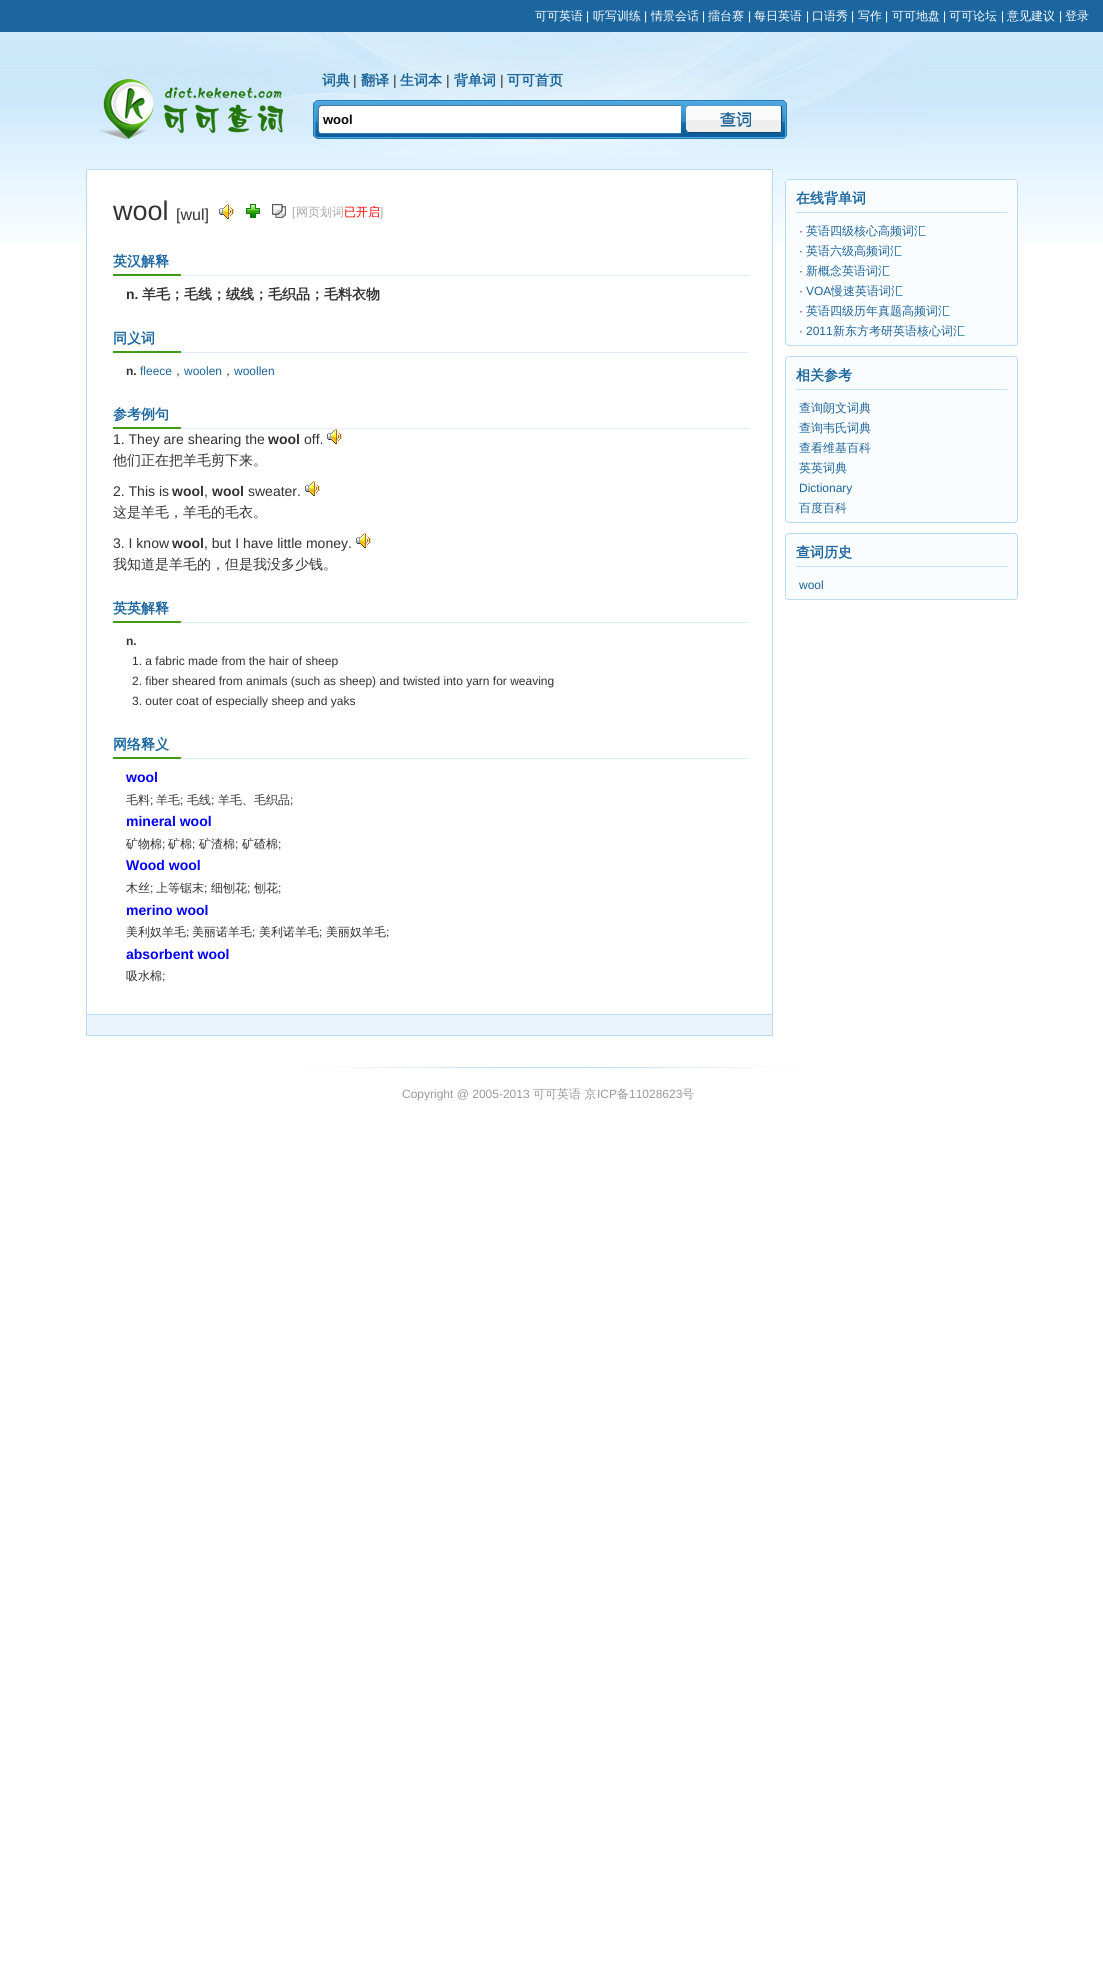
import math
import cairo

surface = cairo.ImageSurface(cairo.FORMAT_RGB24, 1103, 1963)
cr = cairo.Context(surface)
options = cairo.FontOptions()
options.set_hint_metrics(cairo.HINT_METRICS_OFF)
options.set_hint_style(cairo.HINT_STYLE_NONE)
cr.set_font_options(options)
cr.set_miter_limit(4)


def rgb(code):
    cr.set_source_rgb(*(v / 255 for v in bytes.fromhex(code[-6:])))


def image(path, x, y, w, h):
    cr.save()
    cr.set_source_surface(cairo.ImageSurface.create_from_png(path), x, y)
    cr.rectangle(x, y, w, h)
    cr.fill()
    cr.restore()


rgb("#ffffff")
cr.paint()
image("img/1.png", 0, 32, 1103, 212)
rgb("#1b669f")
cr.rectangle(0, 0, 1103, 32)
cr.fill()
image("img/2.png", 99, 32, 214, 107)
image("img/3.png", 313, 32, 611, 125)
image("img/4.png", 313, 100, 5, 39)
image("img/5.png", 318, 100, 464, 39)
image("img/6.png", 318, 105, 363, 29)
image("img/7.png", 686, 106, 96, 27)
image("img/8.png", 782, 100, 5, 39)
rgb("#ffffff")
cr.rectangle(87, 170, 685, 74)
cr.fill()
cr.rectangle(86.5, 169.5, 686, 845)
rgb("#badaf1")
cr.set_line_width(1)
cr.stroke()
image("img/9.png", 219, 204, 15, 15)
image("img/10.png", 246, 204, 14, 14)
image("img/11.png", 272, 204, 14, 14)
image("img/12.png", 113, 274, 635, 2)
image("img/12.png", 113, 351, 635, 2)
image("img/12.png", 113, 427, 635, 2)
image("img/9.png", 327, 429, 15, 15)
image("img/9.png", 305, 481, 15, 15)
image("img/9.png", 356, 533, 15, 15)
image("img/12.png", 113, 621, 635, 2)
image("img/12.png", 113, 757, 635, 2)
for x, y, w, h, color in [
    (87, 1015, 685, 20, "#ecf4fb"),
    (772, 1015, 1, 21, "#badaf1"),
    (86, 1035, 687, 1, "#badaf1"),
    (86, 1015, 1, 21, "#badaf1"),
]:
    rgb(color)
    cr.rectangle(x, y, w, h)
    cr.fill()
image("img/13.png", 785, 179, 233, 5)
for x, y, w, h, color in [
    (786, 184, 231, 157, "#fafdff"),
    (1017, 184, 1, 157, "#badaf1"),
    (785, 184, 1, 157, "#badaf1"),
    (796, 212, 211, 1, "#c6e3f7"),
]:
    rgb(color)
    cr.rectangle(x, y, w, h)
    cr.fill()
image("img/14.png", 785, 341, 233, 5)
image("img/13.png", 785, 356, 233, 5)
for x, y, w, h, color in [
    (786, 361, 231, 157, "#fafdff"),
    (1017, 361, 1, 157, "#badaf1"),
    (785, 361, 1, 157, "#badaf1"),
    (796, 389, 211, 1, "#c6e3f7"),
]:
    rgb(color)
    cr.rectangle(x, y, w, h)
    cr.fill()
image("img/14.png", 785, 518, 233, 5)
image("img/13.png", 785, 533, 233, 5)
for x, y, w, h, color in [
    (786, 538, 231, 57, "#fafdff"),
    (1017, 538, 1, 57, "#badaf1"),
    (785, 538, 1, 57, "#badaf1"),
    (796, 566, 211, 1, "#c6e3f7"),
]:
    rgb(color)
    cr.rectangle(x, y, w, h)
    cr.fill()
image("img/14.png", 785, 595, 233, 5)
image("img/15.png", 308, 1067, 490, 1)
cr.select_font_face("WenQuanYi Zen Hei Medium")
cr.set_font_size(12)
rgb("#ffffff")
cr.move_to(535, 20)
cr.show_text("可可英语")
cr.select_font_face("Liberation Sans")
cr.move_to(586, 20)
cr.show_text("|")
cr.select_font_face("WenQuanYi Zen Hei Medium")
cr.move_to(593, 20)
cr.show_text("听写训练")
cr.select_font_face("Liberation Sans")
cr.move_to(644, 20)
cr.show_text("|")
cr.select_font_face("WenQuanYi Zen Hei Medium")
cr.move_to(651, 20)
cr.show_text("情景会话")
cr.select_font_face("Liberation Sans")
cr.move_to(702, 20)
cr.show_text("|")
cr.select_font_face("WenQuanYi Zen Hei Medium")
cr.move_to(708, 20)
cr.show_text("擂台赛")
cr.select_font_face("Liberation Sans")
cr.move_to(748, 20)
cr.show_text("|")
cr.select_font_face("WenQuanYi Zen Hei Medium")
cr.move_to(754, 20)
cr.show_text("每日英语")
cr.select_font_face("Liberation Sans")
cr.move_to(806, 20)
cr.show_text("|")
cr.select_font_face("WenQuanYi Zen Hei Medium")
cr.move_to(812, 20)
cr.show_text("口语秀")
cr.select_font_face("Liberation Sans")
cr.move_to(851, 20)
cr.show_text("|")
cr.select_font_face("WenQuanYi Zen Hei Medium")
cr.move_to(858, 20)
cr.show_text("写作")
cr.select_font_face("Liberation Sans")
cr.move_to(885, 20)
cr.show_text("|")
cr.select_font_face("WenQuanYi Zen Hei Medium")
cr.move_to(892, 20)
cr.show_text("可可地盘")
cr.select_font_face("Liberation Sans")
cr.move_to(943, 20)
cr.show_text("|")
cr.select_font_face("WenQuanYi Zen Hei Medium")
cr.move_to(949, 20)
cr.show_text("可可论坛")
cr.select_font_face("Liberation Sans")
cr.move_to(1001, 20)
cr.show_text("|")
cr.select_font_face("WenQuanYi Zen Hei Medium")
cr.move_to(1007, 20)
cr.show_text("意见建议")
cr.select_font_face("Liberation Sans")
cr.move_to(1059, 20)
cr.show_text("|")
cr.select_font_face("WenQuanYi Zen Hei Medium")
cr.move_to(1065, 20)
cr.show_text("登录")
cr.select_font_face("WenQuanYi Zen Hei", cairo.FONT_SLANT_NORMAL, cairo.FONT_WEIGHT_BOLD)
cr.set_font_size(14)
rgb("#1d6499")
cr.move_to(322, 85)
cr.show_text("词典")
cr.select_font_face("Liberation Sans")
rgb("#323232")
cr.move_to(353, 85)
cr.show_text("|")
cr.select_font_face("WenQuanYi Zen Hei", cairo.FONT_SLANT_NORMAL, cairo.FONT_WEIGHT_BOLD)
rgb("#1d6499")
cr.move_to(361, 85)
cr.show_text("翻译")
cr.select_font_face("Liberation Sans")
rgb("#323232")
cr.move_to(393, 85)
cr.show_text("|")
cr.select_font_face("WenQuanYi Zen Hei", cairo.FONT_SLANT_NORMAL, cairo.FONT_WEIGHT_BOLD)
rgb("#1d6499")
cr.move_to(400, 85)
cr.show_text("生词本")
cr.select_font_face("Liberation Sans")
rgb("#323232")
cr.move_to(446, 85)
cr.show_text("|")
cr.select_font_face("WenQuanYi Zen Hei", cairo.FONT_SLANT_NORMAL, cairo.FONT_WEIGHT_BOLD)
rgb("#1d6499")
cr.move_to(454, 85)
cr.show_text("背单词")
cr.select_font_face("Liberation Sans")
rgb("#323232")
cr.move_to(500, 85)
cr.show_text("|")
cr.select_font_face("WenQuanYi Zen Hei", cairo.FONT_SLANT_NORMAL, cairo.FONT_WEIGHT_BOLD)
rgb("#1d6499")
cr.move_to(507, 85)
cr.show_text("可可首页")
cr.select_font_face("Liberation Sans", cairo.FONT_SLANT_NORMAL, cairo.FONT_WEIGHT_BOLD)
cr.set_font_size(13)
rgb("#000000")
cr.move_to(323, 124)
cr.show_text("wool")
cr.select_font_face("Liberation Sans")
cr.set_font_size(27)
rgb("#323232")
cr.move_to(113, 220)
cr.show_text("wool")
cr.set_font_size(16)
cr.move_to(176, 220)
cr.show_text("[wul]")
cr.set_font_size(12)
rgb("#aaaaaa")
cr.move_to(292, 216)
cr.show_text("[")
cr.select_font_face("WenQuanYi Zen Hei Medium")
cr.move_to(296, 216)
cr.show_text("网页划词")
rgb("#ff0000")
cr.move_to(344, 216)
cr.show_text("已开启")
cr.select_font_face("Liberation Sans")
rgb("#aaaaaa")
cr.move_to(380, 216)
cr.show_text("]")
cr.select_font_face("WenQuanYi Zen Hei", cairo.FONT_SLANT_NORMAL, cairo.FONT_WEIGHT_BOLD)
cr.set_font_size(14)
rgb("#1b669f")
cr.move_to(113, 266)
cr.show_text("英汉解释")
cr.select_font_face("Liberation Sans", cairo.FONT_SLANT_NORMAL, cairo.FONT_WEIGHT_BOLD)
rgb("#323232")
cr.move_to(126, 299)
cr.show_text("n.")
cr.select_font_face("WenQuanYi Zen Hei", cairo.FONT_SLANT_NORMAL, cairo.FONT_WEIGHT_BOLD)
cr.move_to(142, 299)
cr.show_text("羊毛；毛线；绒线；毛织品；毛料衣物")
rgb("#1b669f")
cr.move_to(113, 343)
cr.show_text("同义词")
cr.select_font_face("Liberation Sans", cairo.FONT_SLANT_NORMAL, cairo.FONT_WEIGHT_BOLD)
cr.set_font_size(12)
rgb("#323232")
cr.move_to(126, 375)
cr.show_text("n.")
cr.select_font_face("Liberation Sans")
rgb("#1d6499")
cr.move_to(140, 375)
cr.show_text("fleece")
cr.select_font_face("WenQuanYi Zen Hei Medium")
rgb("#323232")
cr.move_to(172, 375)
cr.show_text("，")
cr.select_font_face("Liberation Sans")
rgb("#1d6499")
cr.move_to(184, 375)
cr.show_text("woolen")
cr.select_font_face("WenQuanYi Zen Hei Medium")
rgb("#323232")
cr.move_to(222, 375)
cr.show_text("，")
cr.select_font_face("Liberation Sans")
rgb("#1d6499")
cr.move_to(234, 375)
cr.show_text("woollen")
cr.select_font_face("WenQuanYi Zen Hei", cairo.FONT_SLANT_NORMAL, cairo.FONT_WEIGHT_BOLD)
cr.set_font_size(14)
rgb("#1b669f")
cr.move_to(113, 419)
cr.show_text("参考例句")
cr.select_font_face("Liberation Sans")
rgb("#323232")
cr.move_to(113, 444)
cr.show_text("1. They are shearing the")
cr.select_font_face("Liberation Sans", cairo.FONT_SLANT_NORMAL, cairo.FONT_WEIGHT_BOLD)
cr.move_to(268, 444)
cr.show_text("wool")
cr.select_font_face("Liberation Sans")
cr.move_to(304, 444)
cr.show_text("off.")
cr.select_font_face("WenQuanYi Zen Hei Medium")
cr.move_to(113, 465)
cr.show_text("他们正在把羊毛剪下来。")
cr.select_font_face("Liberation Sans")
cr.move_to(113, 496)
cr.show_text("2. This is")
cr.select_font_face("Liberation Sans", cairo.FONT_SLANT_NORMAL, cairo.FONT_WEIGHT_BOLD)
cr.move_to(172, 496)
cr.show_text("wool")
cr.select_font_face("Liberation Sans")
cr.move_to(204, 496)
cr.show_text(",")
cr.select_font_face("Liberation Sans", cairo.FONT_SLANT_NORMAL, cairo.FONT_WEIGHT_BOLD)
cr.move_to(212, 496)
cr.show_text("wool")
cr.select_font_face("Liberation Sans")
cr.move_to(248, 496)
cr.show_text("sweater.")
cr.select_font_face("WenQuanYi Zen Hei Medium")
cr.move_to(113, 517)
cr.show_text("这是羊毛，羊毛的毛衣。")
cr.select_font_face("Liberation Sans")
cr.move_to(113, 548)
cr.show_text("3. I know")
cr.select_font_face("Liberation Sans", cairo.FONT_SLANT_NORMAL, cairo.FONT_WEIGHT_BOLD)
cr.move_to(172, 548)
cr.show_text("wool")
cr.select_font_face("Liberation Sans")
cr.move_to(204, 548)
cr.show_text(", but I have little money.")
cr.select_font_face("WenQuanYi Zen Hei Medium")
cr.move_to(113, 569)
cr.show_text("我知道是羊毛的，但是我没多少钱。")
cr.select_font_face("WenQuanYi Zen Hei", cairo.FONT_SLANT_NORMAL, cairo.FONT_WEIGHT_BOLD)
rgb("#1b669f")
cr.move_to(113, 613)
cr.show_text("英英解释")
cr.select_font_face("Liberation Sans", cairo.FONT_SLANT_NORMAL, cairo.FONT_WEIGHT_BOLD)
cr.set_font_size(12)
rgb("#323232")
cr.move_to(126, 645)
cr.show_text("n.")
cr.select_font_face("Liberation Sans")
for x, y, s in [
    (132, 665, "1. a fabric made from the hair of sheep"),
    (132, 685, "2. fiber sheared from animals (such as sheep) and twisted into yarn for weaving"),
    (132, 705, "3. outer coat of especially sheep and yaks"),
]:
    cr.move_to(x, y)
    cr.show_text(s)
cr.select_font_face("WenQuanYi Zen Hei", cairo.FONT_SLANT_NORMAL, cairo.FONT_WEIGHT_BOLD)
cr.set_font_size(14)
rgb("#1b669f")
cr.move_to(113, 749)
cr.show_text("网络释义")
cr.select_font_face("Liberation Sans", cairo.FONT_SLANT_NORMAL, cairo.FONT_WEIGHT_BOLD)
rgb("#0000ff")
cr.move_to(126, 782)
cr.show_text("wool")
cr.select_font_face("WenQuanYi Zen Hei Medium")
cr.set_font_size(12)
rgb("#323232")
cr.move_to(126, 804)
cr.show_text("毛料")
cr.select_font_face("Liberation Sans")
cr.move_to(150, 804)
cr.show_text(";")
cr.select_font_face("WenQuanYi Zen Hei Medium")
cr.move_to(156, 804)
cr.show_text("羊毛")
cr.select_font_face("Liberation Sans")
cr.move_to(180, 804)
cr.show_text(";")
cr.select_font_face("WenQuanYi Zen Hei Medium")
cr.move_to(187, 804)
cr.show_text("毛线")
cr.select_font_face("Liberation Sans")
cr.move_to(211, 804)
cr.show_text(";")
cr.select_font_face("WenQuanYi Zen Hei Medium")
cr.move_to(218, 804)
cr.show_text("羊毛、毛织品")
cr.select_font_face("Liberation Sans")
cr.move_to(290, 804)
cr.show_text(";")
cr.select_font_face("Liberation Sans", cairo.FONT_SLANT_NORMAL, cairo.FONT_WEIGHT_BOLD)
cr.set_font_size(14)
rgb("#0000ff")
cr.move_to(126, 826)
cr.show_text("mineral wool")
cr.select_font_face("WenQuanYi Zen Hei Medium")
cr.set_font_size(12)
rgb("#323232")
cr.move_to(126, 848)
cr.show_text("矿物棉")
cr.select_font_face("Liberation Sans")
cr.move_to(162, 848)
cr.show_text(";")
cr.select_font_face("WenQuanYi Zen Hei Medium")
cr.move_to(168, 848)
cr.show_text("矿棉")
cr.select_font_face("Liberation Sans")
cr.move_to(192, 848)
cr.show_text(";")
cr.select_font_face("WenQuanYi Zen Hei Medium")
cr.move_to(199, 848)
cr.show_text("矿渣棉")
cr.select_font_face("Liberation Sans")
cr.move_to(235, 848)
cr.show_text(";")
cr.select_font_face("WenQuanYi Zen Hei Medium")
cr.move_to(242, 848)
cr.show_text("矿碴棉")
cr.select_font_face("Liberation Sans")
cr.move_to(278, 848)
cr.show_text(";")
cr.select_font_face("Liberation Sans", cairo.FONT_SLANT_NORMAL, cairo.FONT_WEIGHT_BOLD)
cr.set_font_size(14)
rgb("#0000ff")
cr.move_to(126, 870)
cr.show_text("Wood wool")
cr.select_font_face("WenQuanYi Zen Hei Medium")
cr.set_font_size(12)
rgb("#323232")
cr.move_to(126, 892)
cr.show_text("木丝")
cr.select_font_face("Liberation Sans")
cr.move_to(150, 892)
cr.show_text(";")
cr.select_font_face("WenQuanYi Zen Hei Medium")
cr.move_to(156, 892)
cr.show_text("上等锯末")
cr.select_font_face("Liberation Sans")
cr.move_to(204, 892)
cr.show_text(";")
cr.select_font_face("WenQuanYi Zen Hei Medium")
cr.move_to(211, 892)
cr.show_text("细刨花")
cr.select_font_face("Liberation Sans")
cr.move_to(247, 892)
cr.show_text(";")
cr.select_font_face("WenQuanYi Zen Hei Medium")
cr.move_to(254, 892)
cr.show_text("刨花")
cr.select_font_face("Liberation Sans")
cr.move_to(278, 892)
cr.show_text(";")
cr.select_font_face("Liberation Sans", cairo.FONT_SLANT_NORMAL, cairo.FONT_WEIGHT_BOLD)
cr.set_font_size(14)
rgb("#0000ff")
cr.move_to(126, 915)
cr.show_text("merino wool")
cr.select_font_face("WenQuanYi Zen Hei Medium")
cr.set_font_size(12)
rgb("#323232")
cr.move_to(126, 936)
cr.show_text("美利奴羊毛")
cr.select_font_face("Liberation Sans")
cr.move_to(186, 936)
cr.show_text(";")
cr.select_font_face("WenQuanYi Zen Hei Medium")
cr.move_to(192, 936)
cr.show_text("美丽诺羊毛")
cr.select_font_face("Liberation Sans")
cr.move_to(252, 936)
cr.show_text(";")
cr.select_font_face("WenQuanYi Zen Hei Medium")
cr.move_to(259, 936)
cr.show_text("美利诺羊毛")
cr.select_font_face("Liberation Sans")
cr.move_to(319, 936)
cr.show_text(";")
cr.select_font_face("WenQuanYi Zen Hei Medium")
cr.move_to(326, 936)
cr.show_text("美丽奴羊毛")
cr.select_font_face("Liberation Sans")
cr.move_to(386, 936)
cr.show_text(";")
cr.select_font_face("Liberation Sans", cairo.FONT_SLANT_NORMAL, cairo.FONT_WEIGHT_BOLD)
cr.set_font_size(14)
rgb("#0000ff")
cr.move_to(126, 959)
cr.show_text("absorbent wool")
cr.select_font_face("WenQuanYi Zen Hei Medium")
cr.set_font_size(12)
rgb("#323232")
cr.move_to(126, 980)
cr.show_text("吸水棉")
cr.select_font_face("Liberation Sans")
cr.move_to(162, 980)
cr.show_text(";")
cr.select_font_face("WenQuanYi Zen Hei", cairo.FONT_SLANT_NORMAL, cairo.FONT_WEIGHT_BOLD)
cr.set_font_size(14)
rgb("#1b669f")
cr.move_to(796, 203)
cr.show_text("在线背单词")
cr.select_font_face("Liberation Sans")
cr.set_font_size(12)
rgb("#323232")
cr.move_to(799, 235)
cr.show_text("·")
cr.select_font_face("WenQuanYi Zen Hei Medium")
rgb("#1d6499")
cr.move_to(806, 235)
cr.show_text("英语四级核心高频词汇")
cr.select_font_face("Liberation Sans")
rgb("#323232")
cr.move_to(799, 255)
cr.show_text("·")
cr.select_font_face("WenQuanYi Zen Hei Medium")
rgb("#1d6499")
cr.move_to(806, 255)
cr.show_text("英语六级高频词汇")
cr.select_font_face("Liberation Sans")
rgb("#323232")
cr.move_to(799, 275)
cr.show_text("·")
cr.select_font_face("WenQuanYi Zen Hei Medium")
rgb("#1d6499")
cr.move_to(806, 275)
cr.show_text("新概念英语词汇")
cr.select_font_face("Liberation Sans")
rgb("#323232")
cr.move_to(799, 295)
cr.show_text("·")
rgb("#1d6499")
cr.move_to(806, 295)
cr.show_text("VOA")
cr.select_font_face("WenQuanYi Zen Hei Medium")
cr.move_to(831, 295)
cr.show_text("慢速英语词汇")
cr.select_font_face("Liberation Sans")
rgb("#323232")
cr.move_to(799, 315)
cr.show_text("·")
cr.select_font_face("WenQuanYi Zen Hei Medium")
rgb("#1d6499")
cr.move_to(806, 315)
cr.show_text("英语四级历年真题高频词汇")
cr.select_font_face("Liberation Sans")
rgb("#323232")
cr.move_to(799, 335)
cr.show_text("·")
rgb("#1d6499")
cr.move_to(806, 335)
cr.show_text("2011")
cr.select_font_face("WenQuanYi Zen Hei Medium")
cr.move_to(833, 335)
cr.show_text("新东方考研英语核心词汇")
cr.select_font_face("WenQuanYi Zen Hei", cairo.FONT_SLANT_NORMAL, cairo.FONT_WEIGHT_BOLD)
cr.set_font_size(14)
rgb("#1b669f")
cr.move_to(796, 380)
cr.show_text("相关参考")
cr.select_font_face("WenQuanYi Zen Hei Medium")
cr.set_font_size(12)
rgb("#1d6499")
for x, y, s in [
    (799, 412, "查询朗文词典"),
    (799, 432, "查询韦氏词典"),
    (799, 452, "查看维基百科"),
    (799, 472, "英英词典"),
]:
    cr.move_to(x, y)
    cr.show_text(s)
cr.select_font_face("Liberation Sans")
cr.move_to(799, 492)
cr.show_text("Dictionary")
cr.select_font_face("WenQuanYi Zen Hei Medium")
cr.move_to(799, 512)
cr.show_text("百度百科")
cr.select_font_face("WenQuanYi Zen Hei", cairo.FONT_SLANT_NORMAL, cairo.FONT_WEIGHT_BOLD)
cr.set_font_size(14)
rgb("#1b669f")
cr.move_to(796, 557)
cr.show_text("查词历史")
cr.select_font_face("Liberation Sans")
cr.set_font_size(12)
rgb("#1d6499")
cr.move_to(799, 589)
cr.show_text("wool")
rgb("#999999")
cr.move_to(402, 1098)
cr.show_text("Copyright @ 2005-2013")
cr.select_font_face("WenQuanYi Zen Hei Medium")
cr.move_to(533, 1098)
cr.show_text("可可英语 京")
cr.select_font_face("Liberation Sans")
cr.move_to(597, 1098)
cr.show_text("ICP")
cr.select_font_face("WenQuanYi Zen Hei Medium")
cr.move_to(617, 1098)
cr.show_text("备")
cr.select_font_face("Liberation Sans")
cr.move_to(629, 1098)
cr.show_text("11028623")
cr.select_font_face("WenQuanYi Zen Hei Medium")
cr.move_to(682, 1098)
cr.show_text("号")
surface.write_to_png("page.png")
